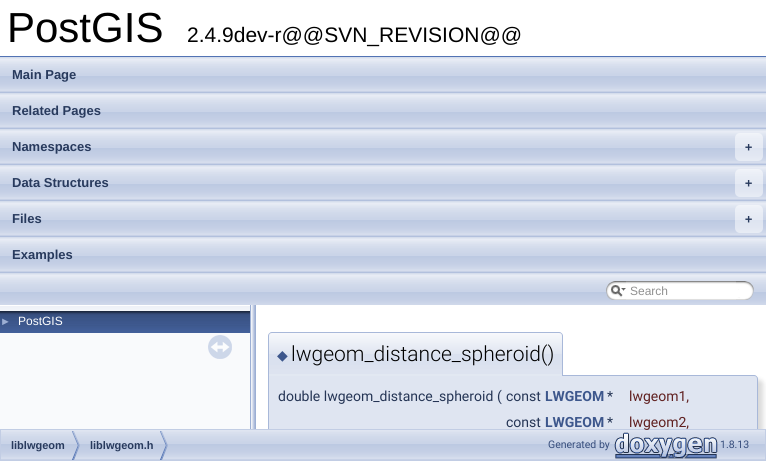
import math
import cairo

surface = cairo.ImageSurface(cairo.FORMAT_RGB24, 766, 461)
cr = cairo.Context(surface)
options = cairo.FontOptions()
options.set_hint_metrics(cairo.HINT_METRICS_OFF)
options.set_hint_style(cairo.HINT_STYLE_NONE)
cr.set_font_options(options)
cr.set_miter_limit(4)


def rgb(code):
    cr.set_source_rgb(*(v / 255 for v in bytes.fromhex(code[-6:])))


def rrect(x, y, w, h, r):
    cr.new_sub_path()
    for i, (u, v) in enumerate([(x + w - r, y + h - r), (x + r, y + h - r), (x + r, y + r), (x + w - r, y + r)]):
        cr.arc(u, v, r, i * math.pi / 2, (i + 1) * math.pi / 2)
    cr.close_path()


def soft_shadow(x, y, w, h, r, blur, alpha):
    cr.push_group_with_content(cairo.CONTENT_ALPHA)
    cr.set_operator(cairo.OPERATOR_SOURCE)
    for i in range(15, -16, -2):
        e = blur * i / 6
        if min(w, h) + 2 * e > 0:
            cr.set_source_rgba(0, 0, 0, alpha * math.erfc((i - 1) / 8.5) / 2)
            rrect(x - e, y - e, w + 2 * e, h + 2 * e, max(0, min(r + e + blur * .6, min(w, h) / 2 + e)))
            cr.fill()
    cr.mask(cr.pop_group())


def image(path, x, y, w, h):
    cr.save()
    cr.set_source_surface(cairo.ImageSurface.create_from_png(path), x, y)
    cr.rectangle(x, y, w, h)
    cr.fill()
    cr.restore()


rgb("#ffffff")
cr.paint()
rgb("#5373b4")
cr.rectangle(0, 56, 766, 1)
cr.fill()
image("img/1.png", 0, 57, 766, 248)
cr.set_source_rgba(1, 1, 1, 0.5)
rrect(735, 133, 28, 28, 5)
cr.fill()
rrect(735, 169, 28, 28, 5)
cr.fill()
rrect(735, 205, 28, 28, 5)
cr.fill()
image("img/2.png", 606, 281, 20, 19)
image("img/3.png", 611, 285, 15, 12)
image("img/4.png", 626, 281, 110, 19)
image("img/5.png", 736, 281, 18, 19)
rgb("#f9fafc")
cr.rectangle(0, 333, 250, 96)
cr.fill()
image("img/6.png", 0, 305, 250, 6)
image("img/7.png", 0, 311, 250, 22)
image("img/8.png", 208, 335, 24, 24)
image("img/9.png", 250, 305, 6, 124)
rgb("#000000")
soft_shadow(273, 380, 490, 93, 4, 2.5, 0.15)
rgb("#dfe5f1")
cr.new_path()
cr.move_to(268, 375)
cr.line_to(754, 375)
cr.curve_to(756, 375, 758, 377, 758, 379)
cr.line_to(758, 429)
cr.line_to(268, 429)
cr.close_path()
cr.fill()
rgb("#a8b8d9")
cr.set_fill_rule(cairo.FILL_RULE_EVEN_ODD)
cr.new_path()
cr.move_to(268, 375)
cr.line_to(754, 375)
cr.curve_to(756, 375, 758, 377, 758, 379)
cr.line_to(758, 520)
cr.line_to(268, 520)
cr.close_path()
cr.move_to(269, 376)
cr.line_to(754, 376)
cr.curve_to(756, 376, 757, 377, 757, 379)
cr.line_to(757, 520)
cr.line_to(269, 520)
cr.close_path()
cr.fill()
rgb("#e2e8f2")
cr.new_path()
cr.move_to(272, 332)
cr.line_to(559, 332)
cr.curve_to(561, 332, 563, 334, 563, 336)
cr.line_to(563, 376)
cr.line_to(268, 376)
cr.line_to(268, 336)
cr.curve_to(268, 334, 270, 332, 272, 332)
cr.close_path()
cr.fill()
image("img/10.png", 268, 333, 295, 41)
rgb("#a8b8d9")
cr.new_path()
cr.move_to(272, 332)
cr.line_to(559, 332)
cr.curve_to(561, 332, 563, 334, 563, 336)
cr.line_to(563, 376)
cr.line_to(268, 376)
cr.line_to(268, 336)
cr.curve_to(268, 334, 270, 332, 272, 332)
cr.close_path()
cr.move_to(272, 333)
cr.line_to(559, 333)
cr.curve_to(561, 333, 562, 334, 562, 336)
cr.line_to(562, 376)
cr.line_to(269, 376)
cr.line_to(269, 336)
cr.curve_to(269, 334, 270, 333, 272, 333)
cr.close_path()
cr.fill()
image("img/11.png", 1, 430, 764, 30)
cr.rectangle(0.5, 429.5, 765, 31)
rgb("#c2cde4")
cr.set_line_width(1)
cr.stroke()
image("img/12.png", 72, 431, 8, 29)
image("img/12.png", 160, 431, 8, 29)
image("img/13.png", 614, 432, 104, 27)
cr.select_font_face("Liberation Sans")
cr.set_font_size(42)
rgb("#000000")
cr.move_to(7, 42)
cr.show_text("PostGIS")
cr.set_font_size(21)
cr.move_to(187, 42)
cr.show_text("2.4.9dev-r@@SVN_REVISION@@")
cr.select_font_face("Liberation Sans", cairo.FONT_SLANT_NORMAL, cairo.FONT_WEIGHT_BOLD)
cr.set_font_size(13)
rgb("#283a5d")
for x, y, s in [
    (12, 79, "Main Page"),
    (12, 115, "Related Pages"),
    (12, 151, "Namespaces"),
]:
    cr.move_to(x, y)
    cr.show_text(s)
cr.select_font_face("DejaVu Sans Mono", cairo.FONT_SLANT_NORMAL, cairo.FONT_WEIGHT_BOLD)
cr.set_font_size(12)
cr.move_to(745, 151)
cr.show_text("+")
cr.select_font_face("Liberation Sans", cairo.FONT_SLANT_NORMAL, cairo.FONT_WEIGHT_BOLD)
cr.set_font_size(13)
cr.move_to(12, 187)
cr.show_text("Data Structures")
cr.select_font_face("DejaVu Sans Mono", cairo.FONT_SLANT_NORMAL, cairo.FONT_WEIGHT_BOLD)
cr.set_font_size(12)
cr.move_to(745, 187)
cr.show_text("+")
cr.select_font_face("Liberation Sans", cairo.FONT_SLANT_NORMAL, cairo.FONT_WEIGHT_BOLD)
cr.set_font_size(13)
cr.move_to(12, 223)
cr.show_text("Files")
cr.select_font_face("DejaVu Sans Mono", cairo.FONT_SLANT_NORMAL, cairo.FONT_WEIGHT_BOLD)
cr.set_font_size(12)
cr.move_to(745, 223)
cr.show_text("+")
cr.select_font_face("Liberation Sans", cairo.FONT_SLANT_NORMAL, cairo.FONT_WEIGHT_BOLD)
cr.set_font_size(13)
cr.move_to(12, 259)
cr.show_text("Examples")
cr.select_font_face("Liberation Sans")
cr.set_font_size(12)
rgb("#909090")
cr.move_to(630, 295)
cr.show_text("Search")
cr.set_font_size(11)
rgb("#9cafd4")
cr.move_to(0, 325)
cr.show_text("►")
cr.set_font_size(12)
rgb("#ffffff")
cr.move_to(18, 325)
cr.show_text("PostGIS")
cr.select_font_face("DejaVu Sans")
cr.set_font_size(14)
rgb("#3d578c")
cr.move_to(277, 360)
cr.show_text("◆")
cr.select_font_face("Roboto Light")
cr.set_font_size(21)
rgb("#000000")
cr.move_to(291, 361)
cr.show_text("lwgeom_distance_spheroid()")
cr.select_font_face("Roboto")
cr.set_font_size(14)
rgb("#253555")
for x, y, s in [
    (278, 401, "double lwgeom_distance_spheroid"),
    (497, 401, "("),
    (506, 401, "const"),
]:
    cr.move_to(x, y)
    cr.show_text(s)
cr.select_font_face("Roboto", cairo.FONT_SLANT_NORMAL, cairo.FONT_WEIGHT_BOLD)
rgb("#3d578c")
cr.move_to(545, 401)
cr.show_text("LWGEOM")
cr.select_font_face("Roboto")
rgb("#253555")
cr.move_to(607, 401)
cr.show_text("*")
rgb("#602020")
cr.move_to(629, 401)
cr.show_text("lwgeom1,")
rgb("#253555")
cr.move_to(506, 427)
cr.show_text("const")
cr.select_font_face("Roboto", cairo.FONT_SLANT_NORMAL, cairo.FONT_WEIGHT_BOLD)
rgb("#3d578c")
cr.move_to(545, 427)
cr.show_text("LWGEOM")
cr.select_font_face("Roboto")
rgb("#253555")
cr.move_to(607, 427)
cr.show_text("*")
rgb("#602020")
cr.move_to(629, 427)
cr.show_text("lwgeom2,")
cr.select_font_face("Liberation Sans", cairo.FONT_SLANT_NORMAL, cairo.FONT_WEIGHT_BOLD)
cr.set_font_size(11)
rgb("#283a5d")
cr.move_to(11, 449)
cr.show_text("liblwgeom")
cr.move_to(90, 449)
cr.show_text("liblwgeom.h")
cr.select_font_face("Roboto")
cr.set_font_size(10.5)
rgb("#364d7c")
cr.move_to(548, 448)
cr.show_text("Generated by")
cr.move_to(720, 448)
cr.show_text("1.8.13")
surface.write_to_png("page.png")
